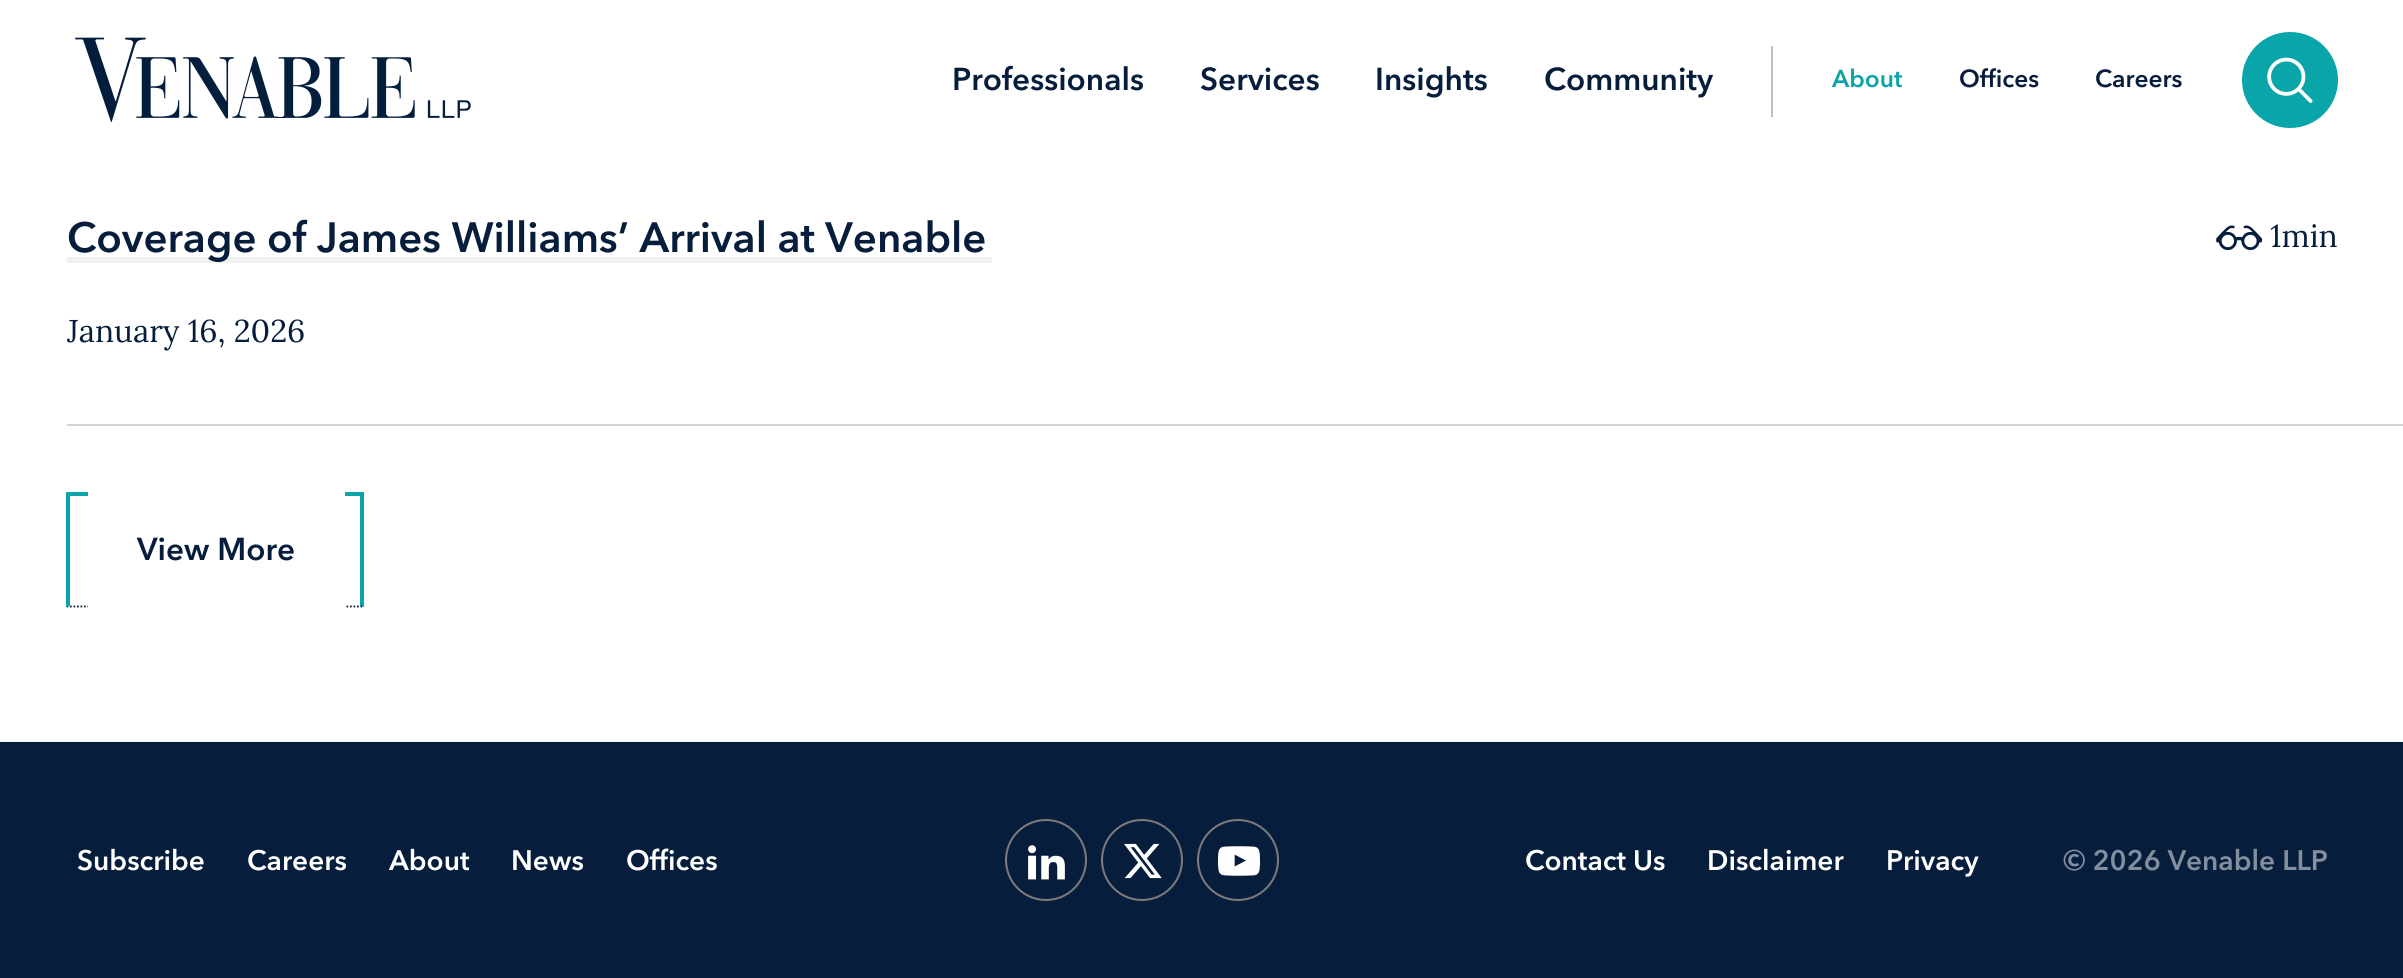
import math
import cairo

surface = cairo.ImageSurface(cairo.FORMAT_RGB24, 2403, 978)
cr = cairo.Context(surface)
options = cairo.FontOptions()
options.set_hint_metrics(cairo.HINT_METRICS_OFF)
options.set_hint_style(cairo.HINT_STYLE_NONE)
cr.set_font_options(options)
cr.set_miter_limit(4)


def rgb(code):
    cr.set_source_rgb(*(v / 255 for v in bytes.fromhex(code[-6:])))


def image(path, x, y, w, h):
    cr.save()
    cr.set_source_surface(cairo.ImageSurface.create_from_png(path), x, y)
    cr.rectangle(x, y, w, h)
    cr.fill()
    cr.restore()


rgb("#ffffff")
cr.paint()
image("img/1.png", 75, 37, 396, 86)
rgb("#bebebe")
cr.rectangle(1771, 46, 2, 71)
cr.fill()
rgb("#09a5a8")
cr.arc(2290, 80, 48, 0, 2 * math.pi)
cr.fill()
image("img/2.png", 2267, 57, 46, 46)
rgb("#f0f0f0")
cr.rectangle(67, 257, 925, 6)
cr.fill()
image("img/3.png", 2216, 225, 47, 26)
rgb("#d3d3d3")
cr.rectangle(67, 424, 2336, 2)
cr.fill()
rgb("#09a5a8")
cr.rectangle(67, 492, 297, 4)
cr.fill()
cr.new_path()
cr.move_to(364, 492)
cr.line_to(364, 607)
cr.line_to(360, 606)
cr.line_to(360, 495)
cr.close_path()
cr.fill()
cr.new_path()
cr.move_to(66.5, 606.5)
cr.line_to(364, 606.5)
rgb("#061e3c")
cr.set_line_width(1.8)
cr.set_dash([1.75, 1.75])
cr.stroke()
rgb("#09a5a8")
cr.new_path()
cr.move_to(66, 607)
cr.line_to(66, 492)
cr.line_to(70, 495)
cr.line_to(70, 606)
cr.close_path()
cr.fill()
for x, y, w, h, color in [
    (88, 492, 257, 4, "#ffffff"),
    (88, 605, 257, 3, "#ffffff"),
    (0, 742, 2403, 236, "#061e3c"),
    (0, 740, 2403, 2, "#f3fafa"),
]:
    rgb(color)
    cr.rectangle(x, y, w, h)
    cr.fill()
cr.arc(1046, 860, 40, 0, 2 * math.pi)
rgb("#7c7c7c")
cr.set_line_width(2)
cr.set_dash([])
cr.stroke()
image("img/4.png", 1028, 845, 37, 35)
cr.arc(1142, 860, 40, 0, 2 * math.pi)
cr.stroke()
image("img/5.png", 1124, 843, 38, 36)
cr.arc(1238, 860, 40, 0, 2 * math.pi)
cr.stroke()
image("img/6.png", 1218, 846, 42, 30)
cr.select_font_face("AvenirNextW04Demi", cairo.FONT_SLANT_NORMAL, cairo.FONT_WEIGHT_BOLD)
cr.set_font_size(31.5)
rgb("#061e3c")
for x, y, s in [
    (952, 90, "Professionals"),
    (1200, 90, "Services"),
    (1375, 90, "Insights"),
    (1544, 90, "Community"),
]:
    cr.move_to(x, y)
    cr.show_text(s)
cr.set_font_size(24.5)
rgb("#09a5a8")
cr.move_to(1832, 87)
cr.show_text("About")
rgb("#061e3c")
cr.move_to(1959, 87)
cr.show_text("Offices")
cr.move_to(2095, 87)
cr.show_text("Careers")
cr.set_font_size(42)
cr.move_to(67, 252)
cr.show_text("Coverage of James Williams’ Arrival at Venable")
cr.select_font_face("Lora")
cr.set_font_size(31.5)
cr.move_to(67, 342)
cr.show_text("January 16, 2026")
cr.move_to(2270, 247)
cr.show_text("1min")
cr.select_font_face("AvenirNextW04Demi", cairo.FONT_SLANT_NORMAL, cairo.FONT_WEIGHT_BOLD)
cr.move_to(137, 560)
cr.show_text("View More")
cr.set_font_size(28)
rgb("#ffffff")
for x, y, s in [
    (77, 870, "Subscribe"),
    (247, 870, "Careers"),
    (389, 870, "About"),
    (511, 870, "News"),
    (626, 870, "Offices"),
    (1525, 870, "Contact Us"),
    (1707, 870, "Disclaimer"),
    (1886, 870, "Privacy"),
]:
    cr.move_to(x, y)
    cr.show_text(s)
rgb("#838f9e")
cr.move_to(2063, 870)
cr.show_text("© 2026 Venable LLP")
surface.write_to_png("page.png")
